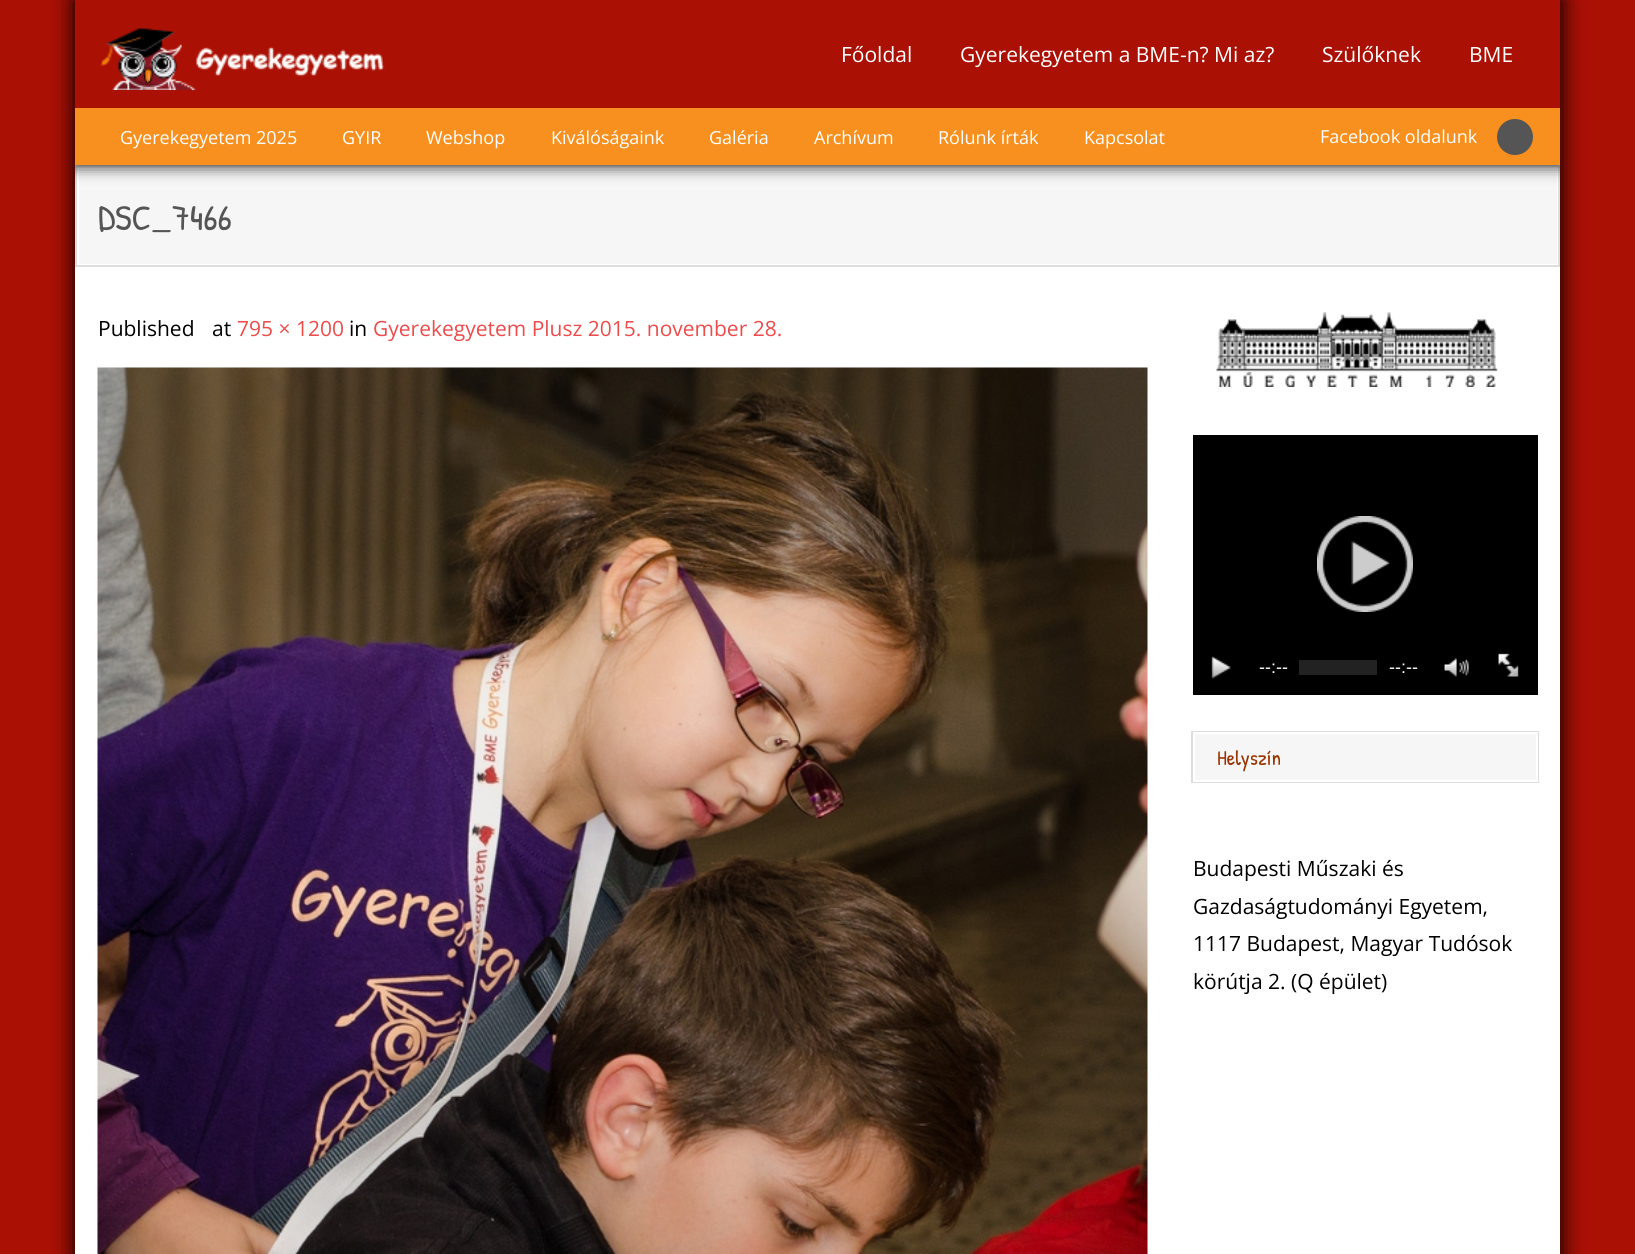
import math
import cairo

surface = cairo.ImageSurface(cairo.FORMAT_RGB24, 1635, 1254)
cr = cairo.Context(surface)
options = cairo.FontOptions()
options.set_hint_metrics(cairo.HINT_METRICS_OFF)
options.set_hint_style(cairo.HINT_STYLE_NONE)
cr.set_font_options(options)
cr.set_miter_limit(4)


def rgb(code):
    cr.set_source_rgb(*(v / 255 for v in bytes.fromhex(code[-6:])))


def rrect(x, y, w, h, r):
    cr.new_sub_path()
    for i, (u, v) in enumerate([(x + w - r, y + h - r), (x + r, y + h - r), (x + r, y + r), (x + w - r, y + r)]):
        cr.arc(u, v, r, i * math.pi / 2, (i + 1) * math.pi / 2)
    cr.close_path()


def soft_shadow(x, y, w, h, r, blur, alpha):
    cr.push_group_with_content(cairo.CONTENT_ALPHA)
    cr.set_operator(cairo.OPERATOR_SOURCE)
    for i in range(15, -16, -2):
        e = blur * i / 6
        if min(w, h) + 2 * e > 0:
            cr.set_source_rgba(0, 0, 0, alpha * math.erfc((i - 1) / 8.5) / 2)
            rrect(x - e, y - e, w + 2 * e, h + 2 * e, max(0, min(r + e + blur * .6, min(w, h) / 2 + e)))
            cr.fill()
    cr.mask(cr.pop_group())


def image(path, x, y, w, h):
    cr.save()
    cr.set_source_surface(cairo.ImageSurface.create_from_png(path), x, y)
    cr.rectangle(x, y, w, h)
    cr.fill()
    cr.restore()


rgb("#ab1005")
cr.paint()
rgb("#000000")
soft_shadow(74, -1, 1488, 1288, 0, 11, 1)
rgb("#ffffff")
cr.rectangle(75, 267, 1485, 987)
cr.fill()
rgb("#f6f6f6")
cr.rectangle(78, 168, 1480, 97)
cr.fill_preserve()
rgb("#ffffff")
cr.stroke()
cr.rectangle(76, 166, 1483, 100)
rgb("#dddddd")
cr.stroke()
cr.save()
cr.rectangle(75, 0, 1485, 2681)
cr.clip()
rgb("#333333")
soft_shadow(74, -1, 1488, 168, 0, 7.5, 1)
cr.restore()
rgb("#ab1005")
cr.rectangle(75, 0, 1485, 108)
cr.fill()
image("img/1.png", 100, 28, 285, 62)
rgb("#f7901e")
cr.rectangle(75, 108, 1485, 57)
cr.fill()
rgb("#555555")
cr.arc(1515, 137, 18, 0, 2 * math.pi)
cr.fill()
image("img/2.png", 97, 367, 1051, 887)
image("img/3.png", 1216, 312, 282, 75)
rgb("#000000")
cr.rectangle(1193, 435, 345, 260)
cr.fill()
image("img/4.png", 1317, 516, 96, 96)
image("img/5.png", 1211, 656, 21, 23)
rgb("#222222")
cr.rectangle(1299, 660, 78, 15)
cr.fill()
image("img/6.png", 1444, 658, 25, 19)
image("img/7.png", 1498, 653, 21, 24)
cr.rectangle(1192, 732, 346, 50)
rgb("#dddddd")
cr.stroke()
rgb("#f6f6f6")
cr.rectangle(1194, 733, 343, 48)
cr.fill_preserve()
rgb("#ffffff")
cr.stroke()
cr.select_font_face("Open Sans")
cr.set_font_size(21)
for x, y, s in [
    (841, 62, "Főoldal"),
    (960, 62, "Gyerekegyetem a BME-n? Mi az?"),
    (1322, 62, "Szülőknek"),
    (1469, 62, "BME"),
]:
    cr.move_to(x, y)
    cr.show_text(s)
cr.set_font_size(18)
for x, y, s in [
    (120, 144, "Gyerekegyetem 2025"),
    (342, 144, "GYIR"),
    (426, 144, "Webshop"),
    (551, 144, "Kiválóságaink"),
    (709, 144, "Galéria"),
    (814, 144, "Archívum"),
    (938, 144, "Rólunk írták"),
    (1084, 144, "Kapcsolat"),
    (1320, 143, "Facebook oldalunk"),
]:
    cr.move_to(x, y)
    cr.show_text(s)
cr.select_font_face("Patrick Hand")
cr.set_font_size(36)
rgb("#555555")
cr.move_to(98, 230)
cr.show_text("DSC_7466")
cr.select_font_face("Open Sans")
cr.set_font_size(21)
rgb("#000000")
cr.move_to(98, 336)
cr.show_text("Published")
cr.move_to(212, 336)
cr.show_text("at")
rgb("#ec4c4c")
cr.move_to(237, 336)
cr.show_text("795 × 1200")
rgb("#000000")
cr.move_to(349, 336)
cr.show_text("in")
rgb("#ec4c4c")
cr.move_to(373, 336)
cr.show_text("Gyerekegyetem Plusz 2015. november 28.")
cr.select_font_face("Liberation Sans")
cr.set_font_size(18)
rgb("#ffffff")
cr.move_to(1259, 673)
cr.show_text("--:--")
cr.move_to(1389, 673)
cr.show_text("--:--")
cr.select_font_face("Patrick Hand")
cr.set_font_size(21)
rgb("#993300")
cr.move_to(1217, 765)
cr.show_text("Helyszín")
cr.select_font_face("Open Sans")
rgb("#000000")
for x, y, s in [
    (1193, 876, "Budapesti Műszaki és"),
    (1193, 914, "Gazdaságtudományi Egyetem,"),
    (1193, 951, "1117 Budapest, Magyar Tudósok"),
    (1193, 989, "körútja 2. (Q épület)"),
]:
    cr.move_to(x, y)
    cr.show_text(s)
surface.write_to_png("page.png")
